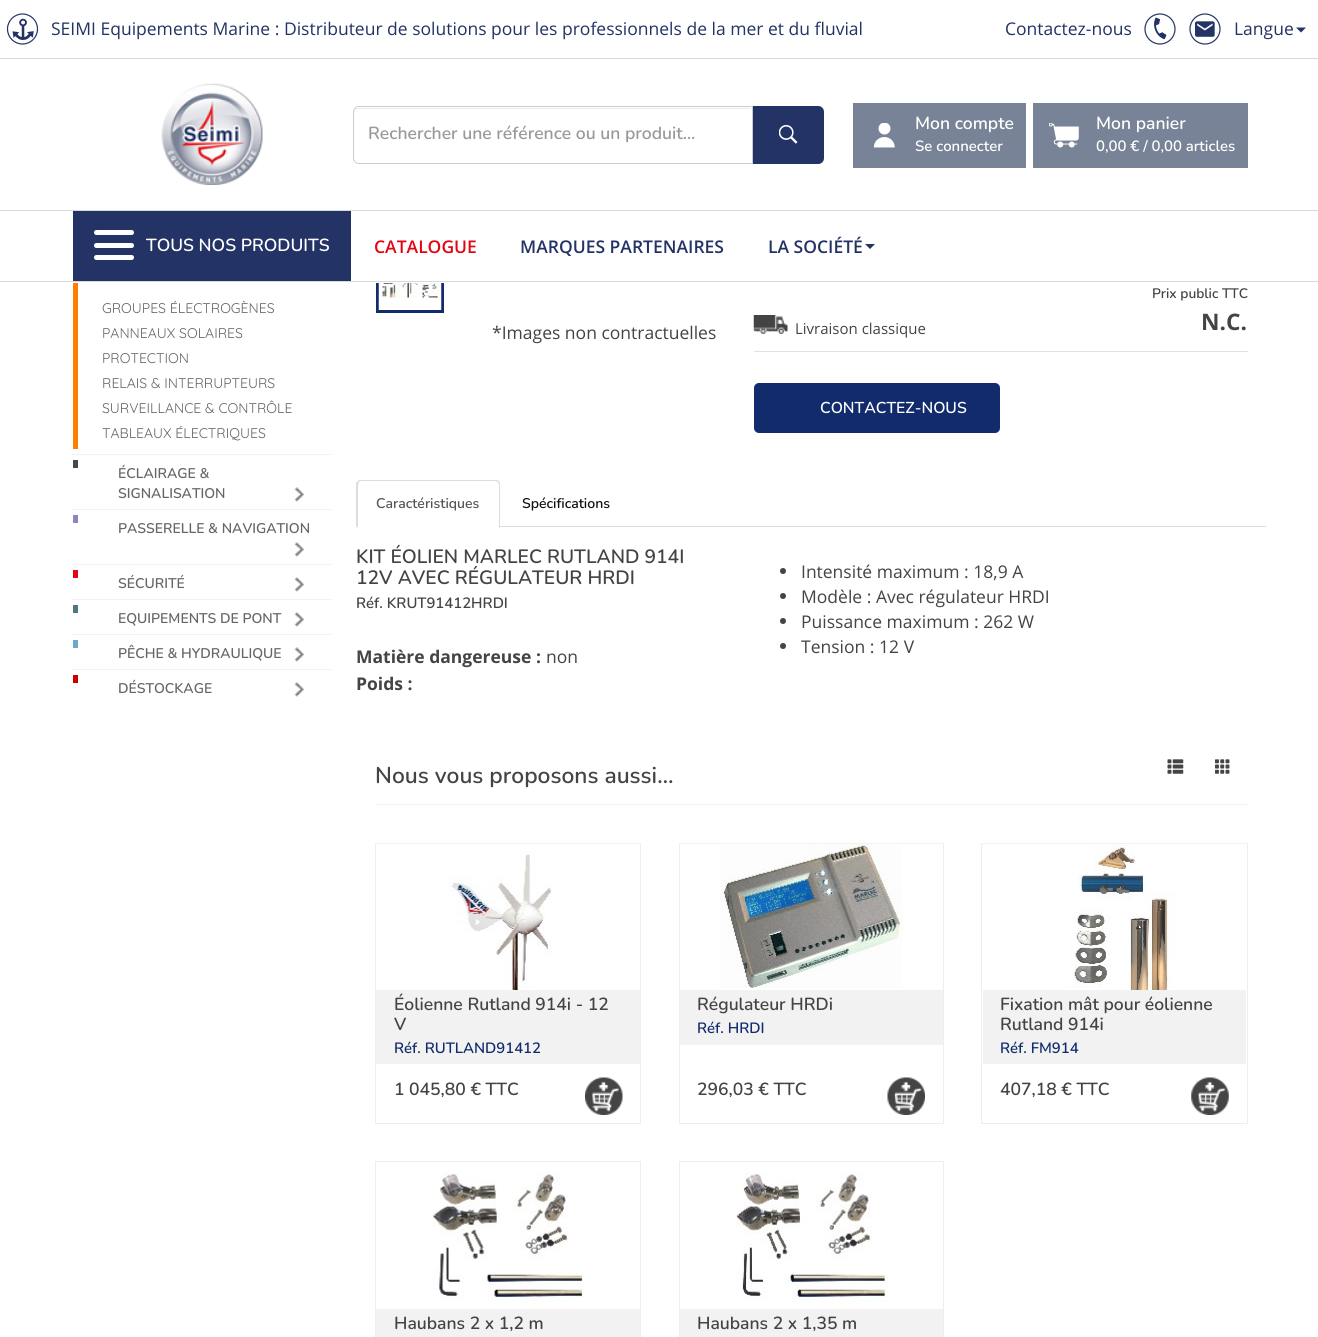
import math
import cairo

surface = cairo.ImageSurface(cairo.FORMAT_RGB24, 1318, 1337)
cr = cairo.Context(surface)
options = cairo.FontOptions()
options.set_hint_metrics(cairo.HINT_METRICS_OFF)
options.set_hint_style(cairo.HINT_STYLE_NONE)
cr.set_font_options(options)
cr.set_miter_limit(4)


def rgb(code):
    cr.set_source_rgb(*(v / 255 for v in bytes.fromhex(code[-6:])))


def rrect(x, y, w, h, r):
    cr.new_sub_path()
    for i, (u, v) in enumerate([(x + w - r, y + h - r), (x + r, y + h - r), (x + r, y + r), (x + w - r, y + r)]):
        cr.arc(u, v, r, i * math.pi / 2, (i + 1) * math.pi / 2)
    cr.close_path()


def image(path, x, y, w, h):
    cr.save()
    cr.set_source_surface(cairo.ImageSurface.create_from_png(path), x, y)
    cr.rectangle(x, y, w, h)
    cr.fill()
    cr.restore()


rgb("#ffffff")
cr.paint()
cr.rectangle(377.5, 246.5, 65, 65)
rgb("#122b6c")
cr.set_line_width(3)
cr.stroke()
rgb("#ffffff")
cr.rectangle(376, 245, 68, 38)
cr.fill()
rgb("#d9d9d9")
cr.rectangle(0, 58, 1318, 1)
cr.fill()
image("img/1.png", 6, 13, 33, 32)
image("img/2.png", 1144, 13, 32, 32)
image("img/3.png", 1189, 13, 32, 32)
rgb("#233365")
cr.new_path()
cr.move_to(1296, 27.5)
cr.line_to(1306, 27.5)
cr.line_to(1301, 32.5)
cr.close_path()
cr.fill()
rgb("#d9d9d9")
cr.rectangle(0, 210, 1318, 1)
cr.fill()
image("img/4.png", 161, 83, 102, 102)
rgb("#ececec")
cr.new_path()
cr.move_to(359, 109)
cr.line_to(751, 109)
cr.line_to(751, 108)
cr.line_to(359, 108)
cr.curve_to(356, 108, 354, 111, 354, 114)
cr.curve_to(354, 111, 356, 109, 359, 109)
cr.close_path()
cr.fill()
cr.new_path()
cr.move_to(359, 106.5)
cr.line_to(752.5, 106.5)
cr.line_to(752.5, 163.5)
cr.line_to(359, 163.5)
cr.curve_to(356, 163.5, 353.5, 161, 353.5, 158)
cr.line_to(353.5, 112)
cr.curve_to(353.5, 109, 356, 106.5, 359, 106.5)
cr.close_path()
rgb("#cccccc")
cr.set_line_width(1)
cr.stroke()
rgb("#233365")
cr.new_path()
cr.move_to(753, 106)
cr.line_to(818, 106)
cr.curve_to(821.5, 106, 824, 108.5, 824, 112)
cr.line_to(824, 158)
cr.curve_to(824, 161.5, 821.5, 164, 818, 164)
cr.line_to(753, 164)
cr.close_path()
cr.fill()
image("img/5.png", 779, 125, 19, 19)
rgb("#788397")
cr.rectangle(853, 103, 173, 65)
cr.fill()
image("img/6.png", 874, 123, 21, 25)
cr.rectangle(1033, 103, 215, 65)
cr.fill()
image("img/7.png", 1049, 123, 30, 25)
rgb("#d9d9d9")
cr.rectangle(0, 281, 1318, 1)
cr.fill()
rgb("#233365")
cr.rectangle(73, 211, 278, 70)
cr.fill()
rgb("#ffffff")
cr.new_path()
cr.move_to(96.5, 230)
cr.line_to(114, 230)
cr.line_to(114, 235)
cr.line_to(96.5, 235)
cr.curve_to(95, 235, 94, 234, 94, 232.5)
cr.curve_to(94, 231, 95, 230, 96.5, 230)
cr.close_path()
cr.fill()
cr.new_path()
cr.move_to(114, 230)
cr.line_to(131.5, 230)
cr.curve_to(133, 230, 134, 231, 134, 232.5)
cr.curve_to(134, 234, 133, 235, 131.5, 235)
cr.line_to(114, 235)
cr.close_path()
cr.fill()
cr.new_path()
cr.move_to(96.5, 243)
cr.line_to(114, 243)
cr.line_to(114, 248)
cr.line_to(96.5, 248)
cr.curve_to(95, 248, 94, 247, 94, 245.5)
cr.curve_to(94, 244, 95, 243, 96.5, 243)
cr.close_path()
cr.fill()
cr.new_path()
cr.move_to(114, 243)
cr.line_to(131.5, 243)
cr.curve_to(133, 243, 134, 244, 134, 245.5)
cr.curve_to(134, 247, 133, 248, 131.5, 248)
cr.line_to(114, 248)
cr.close_path()
cr.fill()
cr.new_path()
cr.move_to(96.5, 255)
cr.line_to(114, 255)
cr.line_to(114, 260)
cr.line_to(96.5, 260)
cr.curve_to(95, 260, 94, 259, 94, 257.5)
cr.curve_to(94, 256, 95, 255, 96.5, 255)
cr.close_path()
cr.fill()
cr.new_path()
cr.move_to(114, 255)
cr.line_to(131.5, 255)
cr.curve_to(133, 255, 134, 256, 134, 257.5)
cr.curve_to(134, 259, 133, 260, 131.5, 260)
cr.line_to(114, 260)
cr.close_path()
cr.fill()
rgb("#233365")
cr.new_path()
cr.move_to(865, 244)
cr.line_to(875, 244)
cr.line_to(870, 249)
cr.close_path()
cr.fill()
for x, y, w, h, color in [
    (73, 283, 5, 166, "#ff7f00"),
    (73, 460, 5, 8, "#4a4949"),
    (71, 454, 260, 1, "#f1f1f1"),
]:
    rgb(color)
    cr.rectangle(x, y, w, h)
    cr.fill()
image("img/8.png", 294, 487, 10, 15)
rgb("#9184be")
cr.rectangle(73, 515, 5, 8)
cr.fill()
rgb("#f1f1f1")
cr.rectangle(71, 509, 260, 1)
cr.fill()
image("img/8.png", 294, 542, 10, 15)
rgb("#e30513")
cr.rectangle(73, 570, 5, 8)
cr.fill()
rgb("#f1f1f1")
cr.rectangle(71, 564, 260, 1)
cr.fill()
image("img/8.png", 294, 577, 10, 15)
rgb("#4e7984")
cr.rectangle(73, 605, 5, 8)
cr.fill()
rgb("#f1f1f1")
cr.rectangle(71, 599, 260, 1)
cr.fill()
image("img/8.png", 294, 612, 10, 15)
rgb("#6caac7")
cr.rectangle(73, 640, 5, 8)
cr.fill()
rgb("#f1f1f1")
cr.rectangle(71, 634, 260, 1)
cr.fill()
image("img/8.png", 294, 647, 10, 15)
rgb("#cc0000")
cr.rectangle(73, 675, 5, 8)
cr.fill()
rgb("#f1f1f1")
cr.rectangle(71, 669, 260, 1)
cr.fill()
image("img/8.png", 294, 682, 10, 15)
image("img/9.png", 378, 283, 64, 27)
rgb("#e2e2e2")
cr.rectangle(754, 351, 494, 1)
cr.fill()
image("img/10.png", 753, 315, 35, 19)
rgb("#122b6c")
rrect(754, 383, 246, 50, 5)
cr.fill()
rgb("#dddddd")
cr.rectangle(500, 526, 766, 1)
cr.fill()
cr.new_path()
cr.move_to(361, 480)
cr.curve_to(360, 480, 358, 480, 358, 481)
cr.line_to(359, 482)
cr.curve_to(359, 482, 360, 481, 361, 481)
cr.line_to(495, 481)
cr.line_to(498, 482)
cr.line_to(499, 481)
cr.curve_to(498, 480, 496, 480, 495, 480)
cr.close_path()
cr.fill()
cr.new_path()
cr.move_to(500, 528)
cr.line_to(500, 485)
cr.curve_to(500, 484, 500, 482, 499, 481)
cr.line_to(498, 482)
cr.curve_to(498, 483, 499, 484, 499, 485)
cr.line_to(499, 526)
cr.line_to(498, 526)
cr.close_path()
cr.fill()
cr.new_path()
cr.move_to(356, 528)
cr.line_to(356, 483)
cr.line_to(358, 481)
cr.line_to(359, 482)
cr.line_to(358, 485)
cr.line_to(358, 526)
cr.close_path()
cr.fill()
rgb("#444444")
cr.arc(783, 571, 3, 0, 2 * math.pi)
cr.fill()
cr.arc(783, 596, 3, 0, 2 * math.pi)
cr.fill()
cr.arc(783, 621, 3, 0, 2 * math.pi)
cr.fill()
cr.arc(783, 646, 3, 0, 2 * math.pi)
cr.fill()
rgb("#f1f1f1")
cr.rectangle(375, 804, 873, 1)
cr.fill()
image("img/11.png", 1167, 759, 17, 15)
image("img/12.png", 1215, 759, 15, 15)
cr.rectangle(375.5, 843.5, 265, 280)
rgb("#eeeeee")
cr.stroke()
image("img/13.png", 377, 843, 263, 147)
rgb("#f2f2f2")
cr.rectangle(376, 990, 264, 74)
cr.fill()
image("img/14.png", 585, 1077, 38, 38)
cr.rectangle(679.5, 843.5, 264, 280)
rgb("#eeeeee")
cr.stroke()
image("img/15.png", 680, 843, 262, 145)
rgb("#f2f2f2")
cr.rectangle(680, 990, 263, 55)
cr.fill()
image("img/16.png", 887, 1077, 38, 38)
cr.rectangle(981.5, 843.5, 266, 280)
rgb("#eeeeee")
cr.stroke()
image("img/17.png", 983, 843, 263, 147)
rgb("#f2f2f2")
cr.rectangle(983, 990, 263, 74)
cr.fill()
image("img/18.png", 1191, 1077, 38, 38)
cr.rectangle(375.5, 1161.5, 265, 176)
rgb("#eeeeee")
cr.stroke()
image("img/19.png", 432, 1172, 153, 130)
rgb("#f2f2f2")
cr.rectangle(376, 1309, 264, 28)
cr.fill()
cr.rectangle(679.5, 1161.5, 264, 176)
rgb("#eeeeee")
cr.stroke()
image("img/20.png", 736, 1172, 152, 130)
rgb("#f2f2f2")
cr.rectangle(680, 1309, 263, 28)
cr.fill()
cr.select_font_face("Open Sans")
cr.set_font_size(17.5)
rgb("#233365")
for x, y, s in [
    (51, 35, "SEIMI Equipements Marine : Distributeur de solutions pour les professionnels de la mer et du fluvial"),
    (1005, 35, "Contactez-nous"),
    (1234, 35, "Langue"),
]:
    cr.move_to(x, y)
    cr.show_text(s)
cr.select_font_face("Nunito ExtraLight")
rgb("#999999")
cr.move_to(368, 139)
cr.show_text("Rechercher une référence ou un produit…")
rgb("#ffffff")
cr.move_to(915, 129)
cr.show_text("Mon compte")
cr.set_font_size(14.9)
cr.move_to(915, 151)
cr.show_text("Se connecter")
cr.set_font_size(17.5)
cr.move_to(1096, 129)
cr.show_text("Mon panier")
cr.set_font_size(14.9)
cr.move_to(1096, 151)
cr.show_text("0,00 € / 0,00 articles")
cr.set_font_size(17.5)
cr.move_to(146, 251)
cr.show_text("TOUS NOS PRODUITS")
cr.select_font_face("Open Sans SemiBold")
rgb("#e30513")
cr.move_to(374, 253)
cr.show_text("CATALOGUE")
rgb("#233365")
cr.move_to(520, 253)
cr.show_text("MARQUES PARTENAIRES")
cr.move_to(768, 253)
cr.show_text("LA SOCIÉTÉ")
cr.select_font_face("Quicksand")
cr.set_font_size(14)
rgb("#666666")
for x, y, s in [
    (102, 313, "GROUPES ÉLECTROGÈNES"),
    (102, 338, "PANNEAUX SOLAIRES"),
    (102, 363, "PROTECTION"),
    (102, 388, "RELAIS & INTERRUPTEURS"),
    (102, 413, "SURVEILLANCE & CONTRÔLE"),
    (102, 438, "TABLEAUX ÉLECTRIQUES"),
]:
    cr.move_to(x, y)
    cr.show_text(s)
cr.select_font_face("Nunito ExtraLight")
for x, y, s in [
    (118, 478, "ÉCLAIRAGE &"),
    (118, 498, "SIGNALISATION"),
    (118, 533, "PASSERELLE & NAVIGATION"),
    (118, 588, "SÉCURITÉ"),
    (118, 623, "EQUIPEMENTS DE PONT"),
    (118, 658, "PÊCHE & HYDRAULIQUE"),
    (118, 693, "DÉSTOCKAGE"),
]:
    cr.move_to(x, y)
    cr.show_text(s)
cr.select_font_face("Open Sans")
cr.set_font_size(17.5)
rgb("#444444")
cr.move_to(492, 339)
cr.show_text("*Images non contractuelles")
cr.set_font_size(15)
cr.move_to(795, 334)
cr.show_text("Livraison classique")
cr.select_font_face("Nunito ExtraLight")
cr.set_font_size(13.75)
cr.move_to(1152, 298)
cr.show_text("Prix public TTC")
cr.select_font_face("Open Sans", cairo.FONT_SLANT_NORMAL, cairo.FONT_WEIGHT_BOLD)
cr.set_font_size(22.75)
cr.move_to(1201, 330)
cr.show_text("N.C.")
cr.select_font_face("Nunito ExtraLight")
cr.set_font_size(15.75)
rgb("#ffffff")
cr.move_to(820, 413)
cr.show_text("CONTACTEZ-NOUS")
cr.set_font_size(14)
rgb("#555555")
cr.move_to(376, 508)
cr.show_text("Caractéristiques")
rgb("#111111")
cr.move_to(522, 508)
cr.show_text("Spécifications")
cr.set_font_size(19.25)
rgb("#444444")
cr.move_to(356, 563)
cr.show_text("KIT ÉOLIEN MARLEC RUTLAND 914I")
cr.move_to(356, 584)
cr.show_text("12V AVEC RÉGULATEUR HRDI")
cr.set_font_size(14.9)
cr.move_to(356, 608)
cr.show_text("Réf. KRUT91412HRDI")
cr.select_font_face("Open Sans", cairo.FONT_SLANT_NORMAL, cairo.FONT_WEIGHT_BOLD)
cr.set_font_size(17.5)
cr.move_to(356, 663)
cr.show_text("Matière dangereuse :")
cr.select_font_face("Open Sans")
cr.move_to(546, 663)
cr.show_text("non")
cr.select_font_face("Open Sans", cairo.FONT_SLANT_NORMAL, cairo.FONT_WEIGHT_BOLD)
cr.move_to(356, 690)
cr.show_text("Poids :")
cr.select_font_face("Open Sans")
for x, y, s in [
    (801, 578, "Intensité maximum : 18,9 A"),
    (801, 603, "Modèle : Avec régulateur HRDI"),
    (801, 628, "Puissance maximum : 262 W"),
    (801, 653, "Tension : 12 V"),
]:
    cr.move_to(x, y)
    cr.show_text(s)
cr.select_font_face("Nunito ExtraLight")
cr.set_font_size(22.75)
cr.move_to(375, 783)
cr.show_text("Nous vous proposons aussi…")
cr.set_font_size(17.5)
cr.move_to(394, 1010)
cr.show_text("Éolienne Rutland 914i - 12")
cr.move_to(394, 1030)
cr.show_text("V")
cr.set_font_size(14.9)
rgb("#122b6c")
cr.move_to(394, 1053)
cr.show_text("Réf. RUTLAND91412")
cr.set_font_size(17.5)
rgb("#444444")
cr.move_to(394, 1095)
cr.show_text("1 045,80 € TTC")
cr.move_to(697, 1010)
cr.show_text("Régulateur HRDi")
cr.set_font_size(14.9)
rgb("#122b6c")
cr.move_to(697, 1033)
cr.show_text("Réf. HRDI")
cr.set_font_size(17.5)
rgb("#444444")
for x, y, s in [
    (697, 1095, "296,03 € TTC"),
    (1000, 1010, "Fixation mât pour éolienne"),
    (1000, 1030, "Rutland 914i"),
]:
    cr.move_to(x, y)
    cr.show_text(s)
cr.set_font_size(14.9)
rgb("#122b6c")
cr.move_to(1000, 1053)
cr.show_text("Réf. FM914")
cr.set_font_size(17.5)
rgb("#444444")
for x, y, s in [
    (1000, 1095, "407,18 € TTC"),
    (394, 1329, "Haubans 2 x 1,2 m"),
    (697, 1329, "Haubans 2 x 1,35 m"),
]:
    cr.move_to(x, y)
    cr.show_text(s)
surface.write_to_png("page.png")
